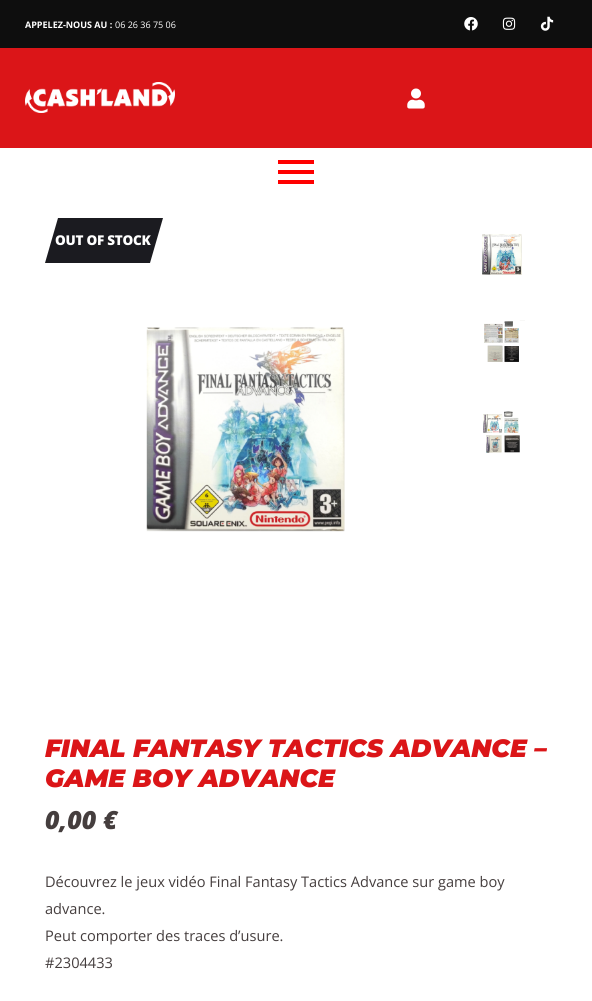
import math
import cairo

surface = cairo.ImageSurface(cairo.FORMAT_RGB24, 592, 1001)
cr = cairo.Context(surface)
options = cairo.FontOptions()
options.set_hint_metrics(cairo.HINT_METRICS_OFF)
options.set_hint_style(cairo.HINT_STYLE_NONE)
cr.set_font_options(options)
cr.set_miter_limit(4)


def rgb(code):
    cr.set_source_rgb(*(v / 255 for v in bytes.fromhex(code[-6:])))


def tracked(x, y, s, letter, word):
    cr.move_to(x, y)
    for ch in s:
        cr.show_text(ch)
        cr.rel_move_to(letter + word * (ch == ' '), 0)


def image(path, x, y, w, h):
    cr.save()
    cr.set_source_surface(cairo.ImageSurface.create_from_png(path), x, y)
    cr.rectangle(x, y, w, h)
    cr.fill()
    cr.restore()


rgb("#ffffff")
cr.paint()
rgb("#0e0e0e")
cr.rectangle(0, 0, 592, 48)
cr.fill()
image("img/1.png", 464, 17, 14, 14)
image("img/2.png", 502, 17, 14, 13)
image("img/3.png", 540, 16, 14, 15)
rgb("#db1518")
cr.rectangle(0, 48, 592, 100)
cr.fill()
image("img/4.png", 25, 82, 150, 31)
image("img/5.png", 407, 88, 18, 21)
for x, y, w, h, color in [
    (278, 160, 36, 4, "#ff0000"),
    (278, 170, 36, 4, "#ff0000"),
    (278, 180, 36, 4, "#ff0000"),
]:
    rgb(color)
    cr.rectangle(x, y, w, h)
    cr.fill()
rgb("#1b1b20")
cr.new_path()
cr.move_to(58, 218)
cr.line_to(163, 218)
cr.line_to(150, 263)
cr.line_to(45, 263)
cr.close_path()
cr.fill()
image("img/6.png", 146, 327, 199, 205)
image("img/7.png", 482, 234, 40, 41)
image("img/8.png", 484, 320, 41, 43)
image("img/9.png", 483, 411, 37, 42)
cr.select_font_face("Open Sans", cairo.FONT_SLANT_NORMAL, cairo.FONT_WEIGHT_BOLD)
cr.set_font_size(9)
rgb("#ffffff")
cr.move_to(25, 28)
cr.show_text("APPELEZ-NOUS AU :")
cr.select_font_face("Open Sans")
cr.move_to(115, 28)
cr.show_text("06 26 36 75 06")
cr.select_font_face("Open Sans ExtraBold")
cr.set_font_size(13.5)
tracked(55, 245, "OUT OF STOCK", -0.25, 0)
cr.select_font_face("Montserrat Black", cairo.FONT_SLANT_ITALIC)
cr.set_font_size(25)
rgb("#db1518")
cr.move_to(45, 757)
cr.show_text("FINAL FANTASY TACTICS ADVANCE –")
cr.move_to(45, 787)
cr.show_text("GAME BOY ADVANCE")
cr.select_font_face("Open Sans ExtraBold", cairo.FONT_SLANT_ITALIC)
rgb("#453e3e")
cr.move_to(45, 829)
cr.show_text("0,00 €")
cr.select_font_face("Open Sans")
cr.set_font_size(14.6)
for x, y, s in [
    (45, 887, "Découvrez le jeux vidéo Final Fantasy Tactics Advance sur game boy"),
    (45, 914, "advance."),
    (45, 941, "Peut comporter des traces d’usure."),
    (45, 968, "#2304433"),
]:
    cr.move_to(x, y)
    cr.show_text(s)
surface.write_to_png("page.png")
